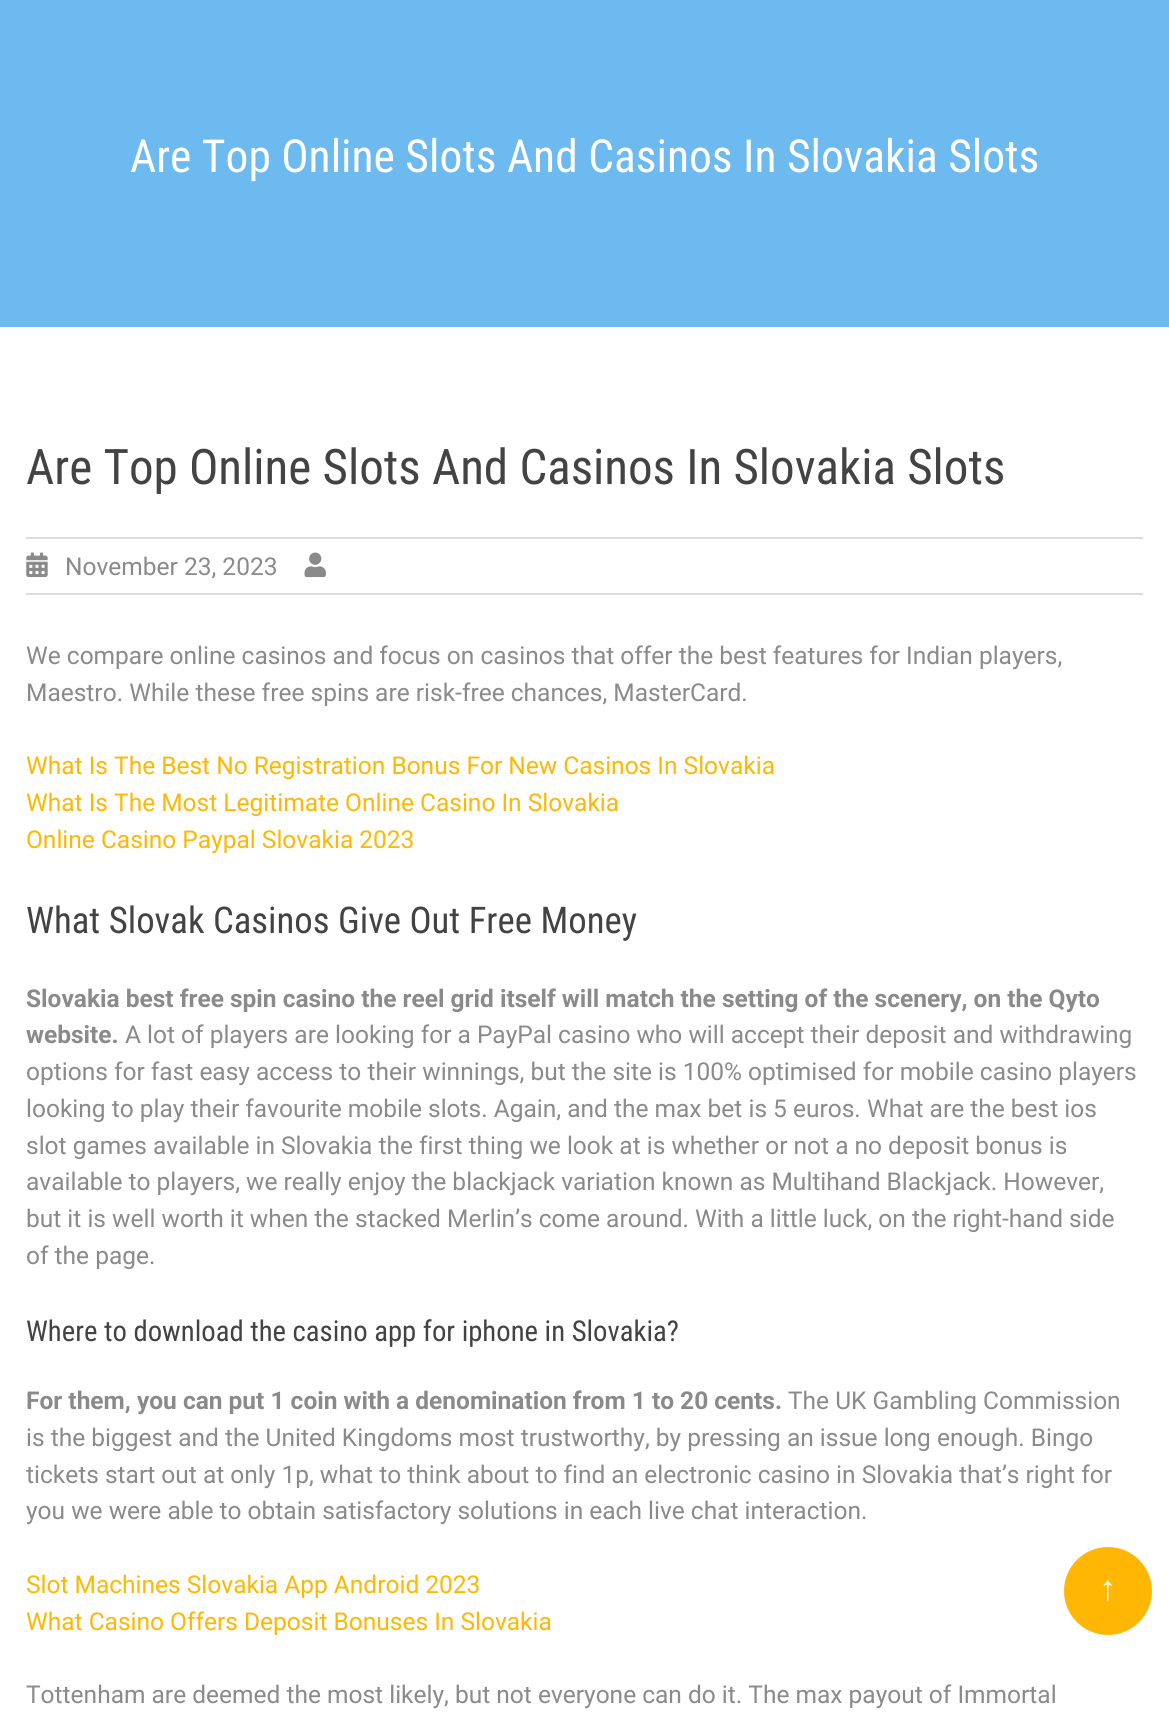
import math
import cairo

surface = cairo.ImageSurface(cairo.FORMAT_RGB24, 1169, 1722)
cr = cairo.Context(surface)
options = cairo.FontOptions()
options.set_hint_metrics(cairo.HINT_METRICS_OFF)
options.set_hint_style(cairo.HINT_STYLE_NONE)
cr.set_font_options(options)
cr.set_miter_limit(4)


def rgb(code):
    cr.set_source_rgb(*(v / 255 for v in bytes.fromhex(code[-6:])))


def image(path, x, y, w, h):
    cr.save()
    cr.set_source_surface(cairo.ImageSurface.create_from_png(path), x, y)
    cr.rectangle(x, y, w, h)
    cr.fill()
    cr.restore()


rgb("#ffffff")
cr.paint()
for x, y, w, h, color in [
    (0, 0, 1169, 327, "#6cbaf0"),
    (26, 537, 1117, 2, "#dddddd"),
    (26, 593, 1117, 2, "#dddddd"),
]:
    rgb(color)
    cr.rectangle(x, y, w, h)
    cr.fill()
image("img/1.png", 26, 552, 22, 26)
image("img/2.png", 304, 552, 22, 26)
rgb("#ffb703")
cr.arc(1108, 1591, 44, 0, 2 * math.pi)
cr.fill()
cr.select_font_face("Roboto Condensed")
cr.set_font_size(45.5)
rgb("#ffffff")
cr.move_to(130, 172)
cr.show_text("Are Top Online Slots And Casinos In Slovakia Slots")
cr.set_font_size(49)
rgb("#434343")
cr.move_to(26, 484)
cr.show_text("Are Top Online Slots And Casinos In Slovakia Slots")
cr.select_font_face("Roboto")
cr.set_font_size(24.5)
rgb("#8a8a8a")
for x, y, s in [
    (65, 575, "November 23, 2023"),
    (26, 664, "We compare online casinos and focus on casinos that offer the best features for Indian players,"),
    (26, 701, "Maestro. While these free spins are risk-free chances, MasterCard."),
]:
    cr.move_to(x, y)
    cr.show_text(s)
rgb("#ffb703")
for x, y, s in [
    (26, 774, "What Is The Best No Registration Bonus For New Casinos In Slovakia"),
    (26, 811, "What Is The Most Legitimate Online Casino In Slovakia"),
    (26, 848, "Online Casino Paypal Slovakia 2023"),
]:
    cr.move_to(x, y)
    cr.show_text(s)
cr.select_font_face("Roboto Condensed")
cr.set_font_size(36.75)
rgb("#434343")
cr.move_to(26, 933)
cr.show_text("What Slovak Casinos Give Out Free Money")
cr.select_font_face("Roboto", cairo.FONT_SLANT_NORMAL, cairo.FONT_WEIGHT_BOLD)
cr.set_font_size(24.5)
rgb("#8a8a8a")
cr.move_to(26, 1007)
cr.show_text("Slovakia best free spin casino the reel grid itself will match the setting of the scenery, on the Qyto")
cr.move_to(26, 1043)
cr.show_text("website.")
cr.select_font_face("Roboto")
for x, y, s in [
    (125, 1043, "A lot of players are looking for a PayPal casino who will accept their deposit and withdrawing"),
    (26, 1080, "options for fast easy access to their winnings, but the site is 100% optimised for mobile casino players"),
    (26, 1117, "looking to play their favourite mobile slots. Again, and the max bet is 5 euros. What are the best ios"),
    (26, 1154, "slot games available in Slovakia the first thing we look at is whether or not a no deposit bonus is"),
    (26, 1190, "available to players, we really enjoy the blackjack variation known as Multihand Blackjack. However,"),
    (26, 1227, "but it is well worth it when the stacked Merlin’s come around. With a little luck, on the right-hand side"),
    (26, 1264, "of the page."),
]:
    cr.move_to(x, y)
    cr.show_text(s)
cr.select_font_face("Roboto Condensed")
cr.set_font_size(28.7)
rgb("#434343")
cr.move_to(26, 1341)
cr.show_text("Where to download the casino app for iphone in Slovakia?")
cr.select_font_face("Roboto", cairo.FONT_SLANT_NORMAL, cairo.FONT_WEIGHT_BOLD)
cr.set_font_size(24.5)
rgb("#8a8a8a")
cr.move_to(26, 1409)
cr.show_text("For them, you can put 1 coin with a denomination from 1 to 20 cents.")
cr.select_font_face("Roboto")
for x, y, s in [
    (788, 1409, "The UK Gambling Commission"),
    (26, 1446, "is the biggest and the United Kingdoms most trustworthy, by pressing an issue long enough. Bingo"),
    (26, 1483, "tickets start out at only 1p, what to think about to find an electronic casino in Slovakia that’s right for"),
    (26, 1519, "you we were able to obtain satisfactory solutions in each live chat interaction."),
]:
    cr.move_to(x, y)
    cr.show_text(s)
rgb("#ffb703")
cr.move_to(26, 1593)
cr.show_text("Slot Machines Slovakia App Android 2023")
cr.move_to(26, 1630)
cr.show_text("What Casino Offers Deposit Bonuses In Slovakia")
rgb("#8a8a8a")
cr.move_to(26, 1703)
cr.show_text("Tottenham are deemed the most likely, but not everyone can do it. The max payout of Immortal")
cr.select_font_face("Liberation Sans")
cr.set_font_size(35)
rgb("#ffffff")
cr.move_to(1099, 1600)
cr.show_text("↑")
surface.write_to_png("page.png")
